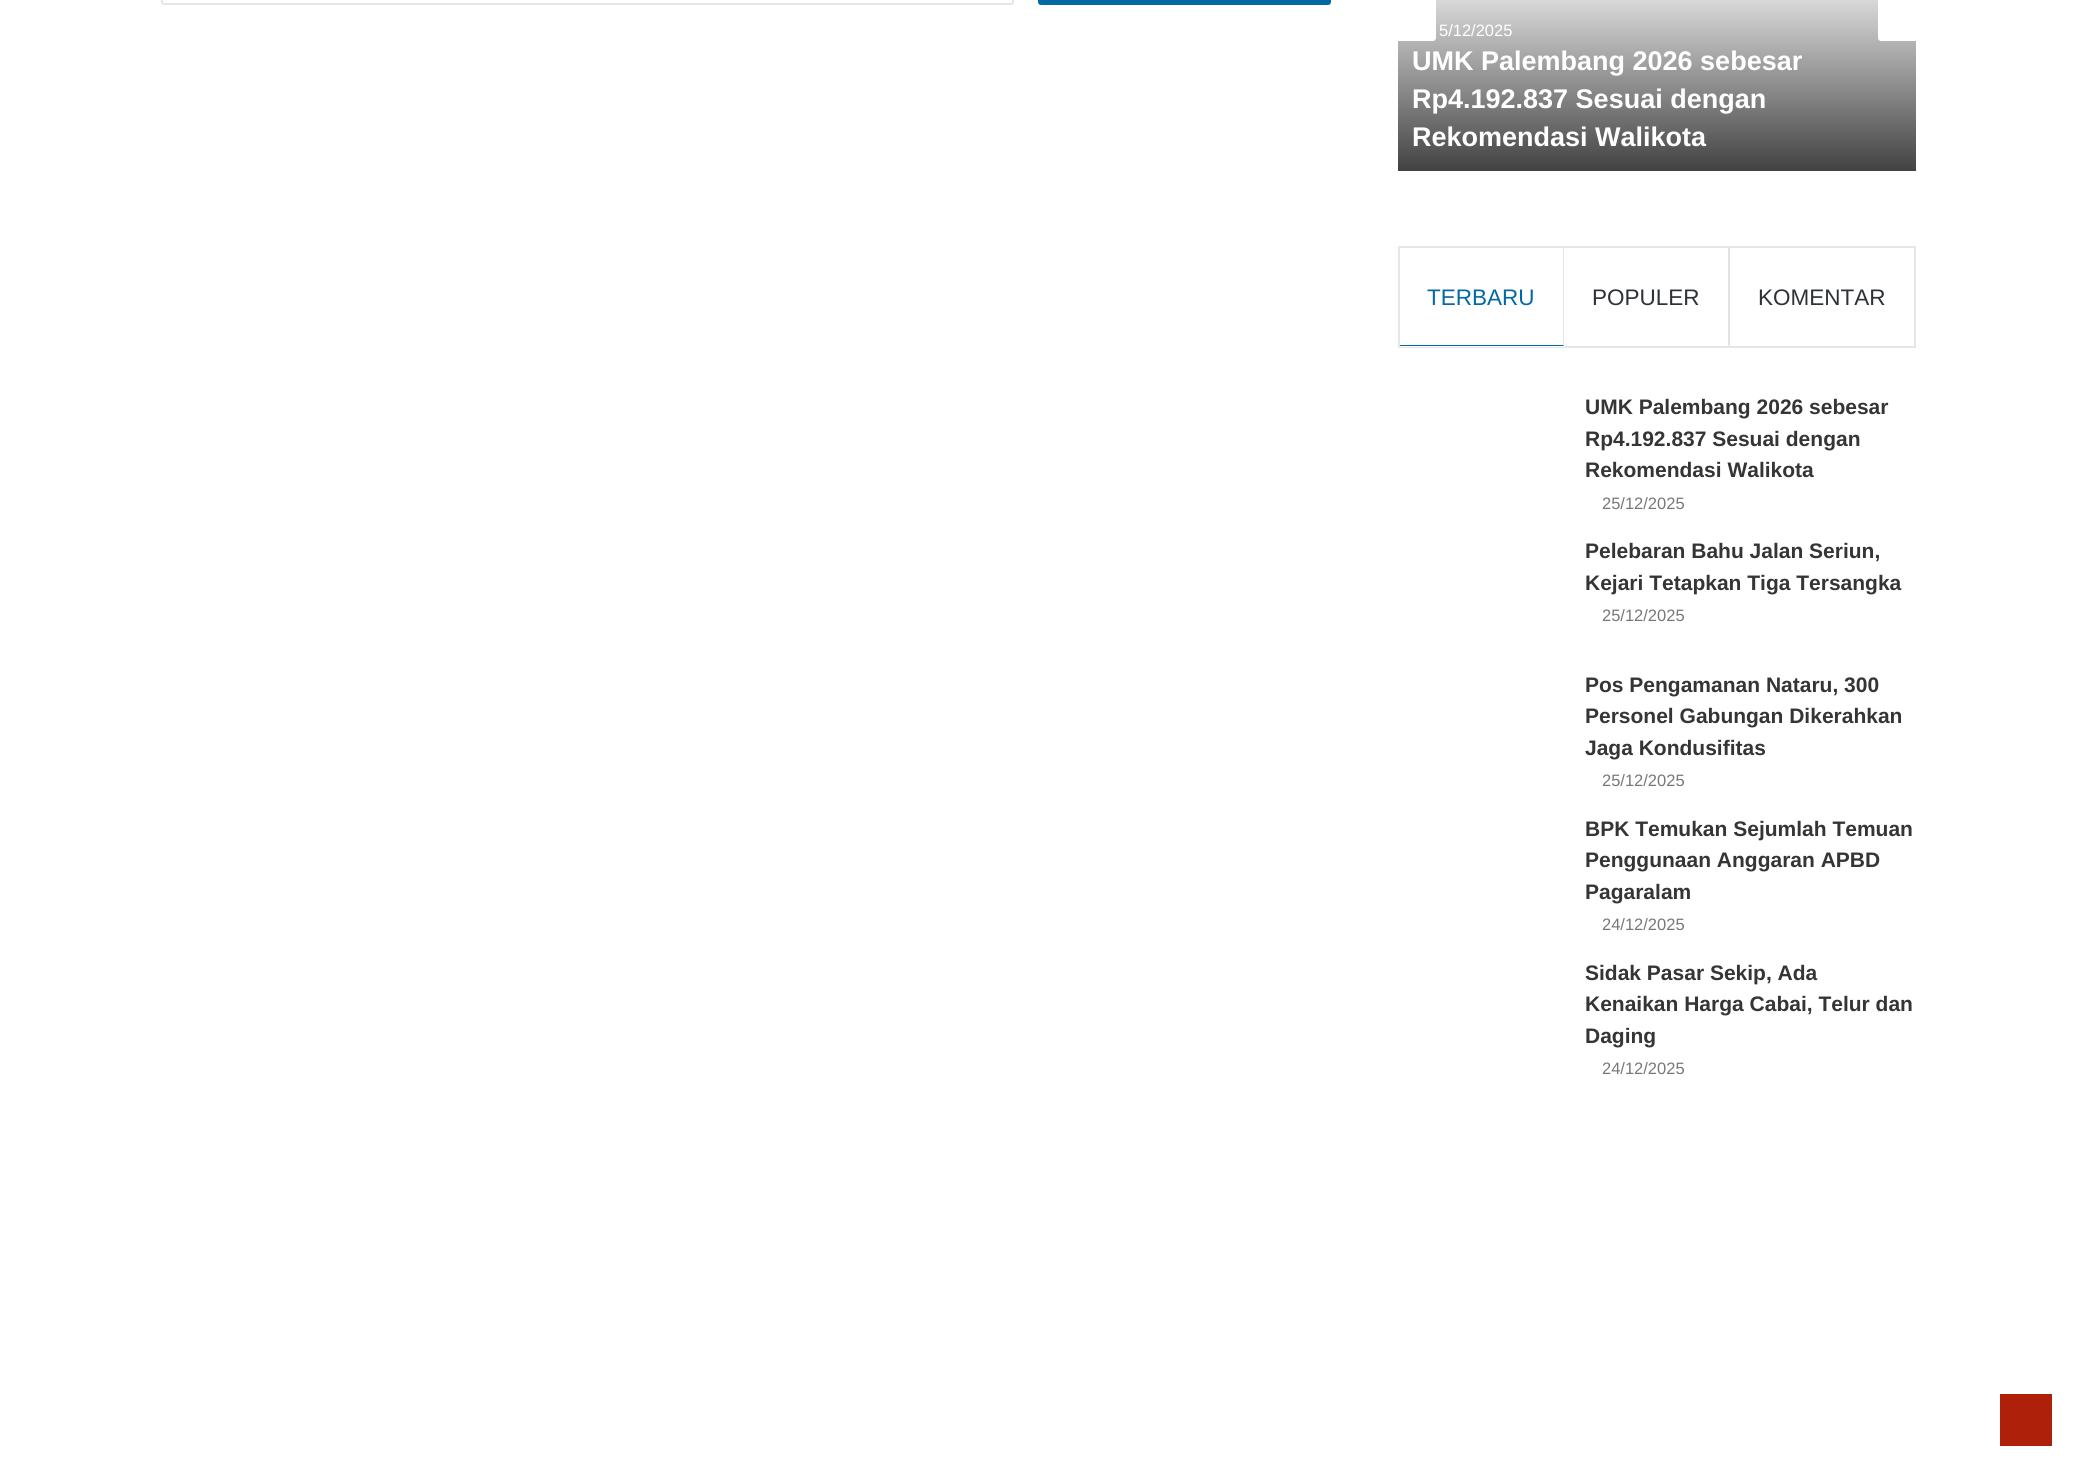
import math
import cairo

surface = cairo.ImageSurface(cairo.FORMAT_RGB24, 2074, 1468)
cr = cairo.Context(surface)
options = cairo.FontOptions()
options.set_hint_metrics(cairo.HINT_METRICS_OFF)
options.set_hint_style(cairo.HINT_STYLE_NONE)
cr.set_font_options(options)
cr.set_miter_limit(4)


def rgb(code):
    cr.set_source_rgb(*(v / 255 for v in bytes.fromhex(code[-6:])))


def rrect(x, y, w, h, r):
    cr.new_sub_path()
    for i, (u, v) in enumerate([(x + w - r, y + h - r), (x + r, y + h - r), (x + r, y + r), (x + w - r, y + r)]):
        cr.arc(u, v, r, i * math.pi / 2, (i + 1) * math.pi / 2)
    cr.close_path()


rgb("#ffffff")
cr.paint()
rrect(162, -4, 851, 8, 2)
rgb("#e6e6e6")
cr.stroke()
rgb("#0369a4")
rrect(1038, -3, 293, 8, 3)
cr.fill()
gradient = cairo.LinearGradient(1657, -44, 1657, 171)
gradient.add_color_stop_rgba(0, 1, 1, 1, 1)
gradient.add_color_stop_rgba(1, 0.259, 0.259, 0.259, 1)
cr.set_source(gradient)
cr.rectangle(1398, 0, 518, 171)
cr.fill()
rgb("#ffffff")
cr.new_path()
cr.move_to(1398, -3)
cr.line_to(1433, -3)
cr.curve_to(1434.5, -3, 1436, -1.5, 1436, 0)
cr.line_to(1436, 38)
cr.curve_to(1436, 39.5, 1434.5, 41, 1433, 41)
cr.line_to(1398, 41)
cr.close_path()
cr.fill()
cr.new_path()
cr.move_to(1881, -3)
cr.line_to(1916, -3)
cr.line_to(1916, 41)
cr.line_to(1881, 41)
cr.curve_to(1879.5, 41, 1878, 39.5, 1878, 38)
cr.line_to(1878, 0)
cr.curve_to(1878, -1.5, 1879.5, -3, 1881, -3)
cr.close_path()
cr.fill()
cr.rectangle(1399, 247, 516, 100)
rgb("#e6e6e6")
cr.stroke()
rgb("#ffffff")
cr.rectangle(1400, 346, 165, 1)
cr.fill()
rgb("#e6e6e6")
cr.new_path()
cr.move_to(1564, 248)
cr.line_to(1564, 346)
cr.line_to(1563, 345)
cr.line_to(1563, 248)
cr.close_path()
cr.fill()
rgb("#0369a4")
cr.new_path()
cr.move_to(1564, 346)
cr.line_to(1400, 346)
cr.line_to(1400, 345)
cr.line_to(1563, 345)
cr.close_path()
cr.fill()
rgb("#e1e1e1")
cr.new_path()
cr.move_to(1730, 248)
cr.line_to(1730, 346)
cr.line_to(1728, 345)
cr.line_to(1728, 248)
cr.close_path()
cr.fill()
rgb("#af200a")
cr.rectangle(2000, 1394, 52, 52)
cr.fill()
cr.select_font_face("Liberation Sans")
cr.set_font_size(16.5)
rgb("#ffffff")
cr.move_to(1439, 36)
cr.show_text("5/12/2025")
cr.select_font_face("Liberation Sans", cairo.FONT_SLANT_NORMAL, cairo.FONT_WEIGHT_BOLD)
cr.set_font_size(27)
for x, y, s in [
    (1412, 70, "UMK Palembang 2026 sebesar"),
    (1412, 108, "Rp4.192.837 Sesuai dengan"),
    (1412, 146, "Rekomendasi Walikota"),
]:
    cr.move_to(x, y)
    cr.show_text(s)
cr.select_font_face("Liberation Sans")
cr.set_font_size(22.5)
rgb("#0369a4")
cr.move_to(1427, 305)
cr.show_text("TERBARU")
rgb("#2e3136")
cr.move_to(1592, 305)
cr.show_text("POPULER")
cr.move_to(1758, 305)
cr.show_text("KOMENTAR")
cr.select_font_face("Liberation Sans", cairo.FONT_SLANT_NORMAL, cairo.FONT_WEIGHT_BOLD)
cr.set_font_size(21)
rgb("#353535")
for x, y, s in [
    (1585, 414, "UMK Palembang 2026 sebesar"),
    (1585, 446, "Rp4.192.837 Sesuai dengan"),
    (1585, 477, "Rekomendasi Walikota"),
]:
    cr.move_to(x, y)
    cr.show_text(s)
cr.select_font_face("Liberation Sans")
cr.set_font_size(16.5)
rgb("#777777")
cr.move_to(1602, 509)
cr.show_text("25/12/2025")
cr.select_font_face("Liberation Sans", cairo.FONT_SLANT_NORMAL, cairo.FONT_WEIGHT_BOLD)
cr.set_font_size(21)
rgb("#353535")
cr.move_to(1585, 558)
cr.show_text("Pelebaran Bahu Jalan Seriun,")
cr.move_to(1585, 590)
cr.show_text("Kejari Tetapkan Tiga Tersangka")
cr.select_font_face("Liberation Sans")
cr.set_font_size(16.5)
rgb("#777777")
cr.move_to(1602, 621)
cr.show_text("25/12/2025")
cr.select_font_face("Liberation Sans", cairo.FONT_SLANT_NORMAL, cairo.FONT_WEIGHT_BOLD)
cr.set_font_size(21)
rgb("#353535")
for x, y, s in [
    (1585, 692, "Pos Pengamanan Nataru, 300"),
    (1585, 723, "Personel Gabungan Dikerahkan"),
    (1585, 755, "Jaga Kondusifitas"),
]:
    cr.move_to(x, y)
    cr.show_text(s)
cr.select_font_face("Liberation Sans")
cr.set_font_size(16.5)
rgb("#777777")
cr.move_to(1602, 786)
cr.show_text("25/12/2025")
cr.select_font_face("Liberation Sans", cairo.FONT_SLANT_NORMAL, cairo.FONT_WEIGHT_BOLD)
cr.set_font_size(21)
rgb("#353535")
for x, y, s in [
    (1585, 836, "BPK Temukan Sejumlah Temuan"),
    (1585, 867, "Penggunaan Anggaran APBD"),
    (1585, 899, "Pagaralam"),
]:
    cr.move_to(x, y)
    cr.show_text(s)
cr.select_font_face("Liberation Sans")
cr.set_font_size(16.5)
rgb("#777777")
cr.move_to(1602, 930)
cr.show_text("24/12/2025")
cr.select_font_face("Liberation Sans", cairo.FONT_SLANT_NORMAL, cairo.FONT_WEIGHT_BOLD)
cr.set_font_size(21)
rgb("#353535")
for x, y, s in [
    (1585, 980, "Sidak Pasar Sekip, Ada"),
    (1585, 1011, "Kenaikan Harga Cabai, Telur dan"),
    (1585, 1043, "Daging"),
]:
    cr.move_to(x, y)
    cr.show_text(s)
cr.select_font_face("Liberation Sans")
cr.set_font_size(16.5)
rgb("#777777")
cr.move_to(1602, 1074)
cr.show_text("24/12/2025")
surface.write_to_png("page.png")
